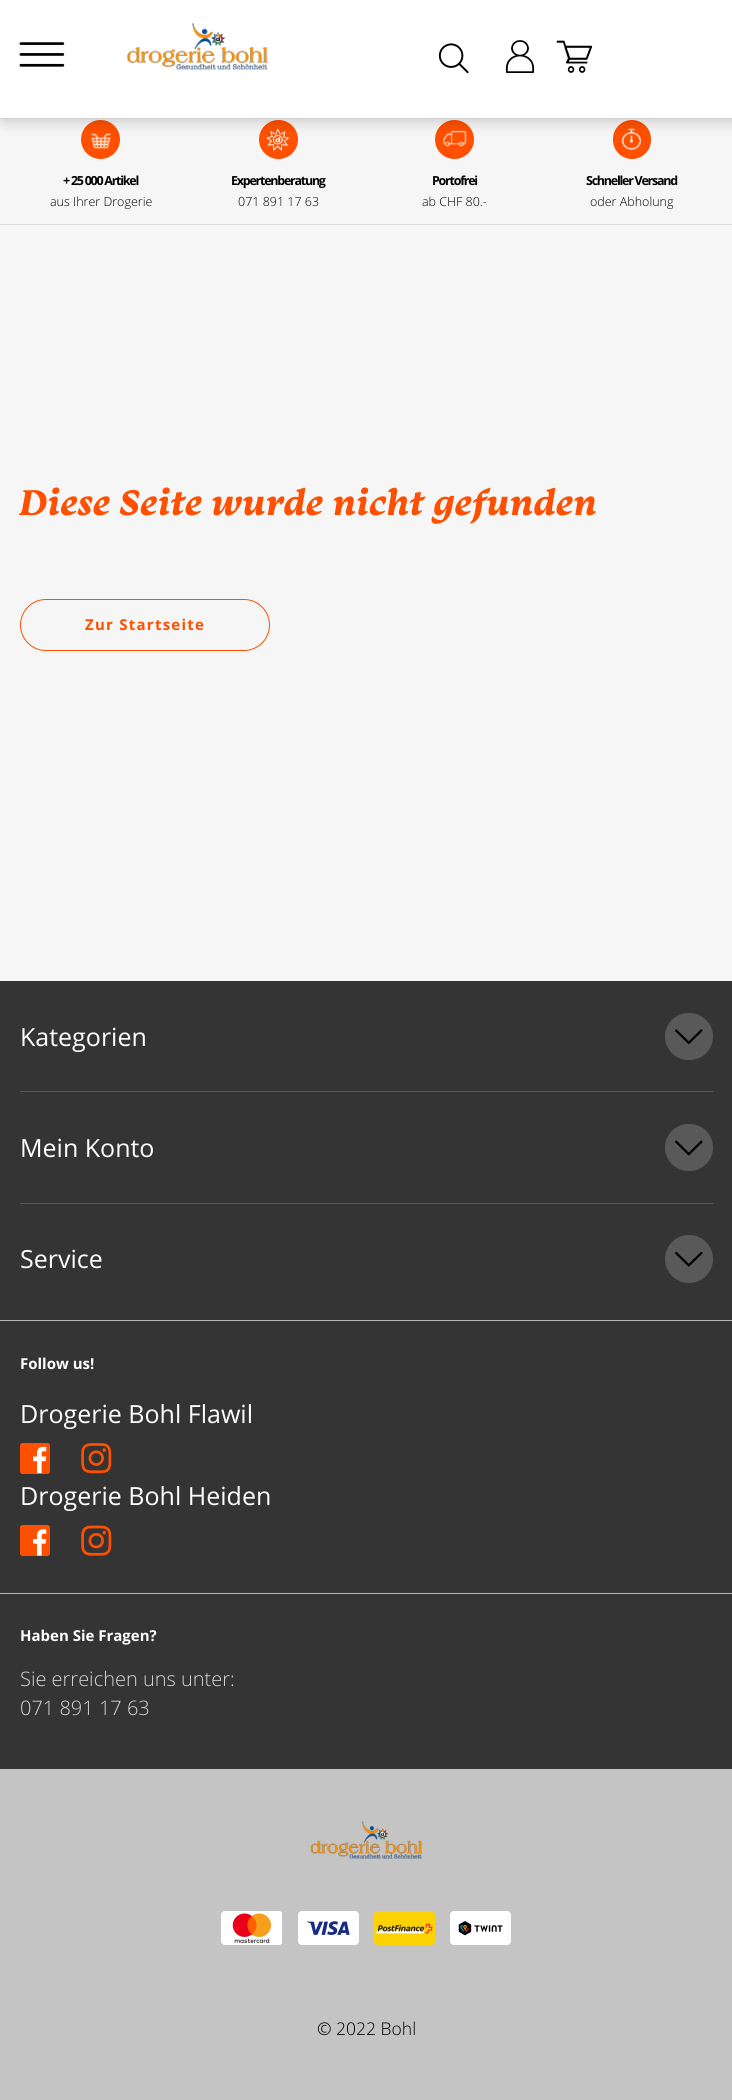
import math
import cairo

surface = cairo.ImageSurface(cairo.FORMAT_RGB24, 732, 2100)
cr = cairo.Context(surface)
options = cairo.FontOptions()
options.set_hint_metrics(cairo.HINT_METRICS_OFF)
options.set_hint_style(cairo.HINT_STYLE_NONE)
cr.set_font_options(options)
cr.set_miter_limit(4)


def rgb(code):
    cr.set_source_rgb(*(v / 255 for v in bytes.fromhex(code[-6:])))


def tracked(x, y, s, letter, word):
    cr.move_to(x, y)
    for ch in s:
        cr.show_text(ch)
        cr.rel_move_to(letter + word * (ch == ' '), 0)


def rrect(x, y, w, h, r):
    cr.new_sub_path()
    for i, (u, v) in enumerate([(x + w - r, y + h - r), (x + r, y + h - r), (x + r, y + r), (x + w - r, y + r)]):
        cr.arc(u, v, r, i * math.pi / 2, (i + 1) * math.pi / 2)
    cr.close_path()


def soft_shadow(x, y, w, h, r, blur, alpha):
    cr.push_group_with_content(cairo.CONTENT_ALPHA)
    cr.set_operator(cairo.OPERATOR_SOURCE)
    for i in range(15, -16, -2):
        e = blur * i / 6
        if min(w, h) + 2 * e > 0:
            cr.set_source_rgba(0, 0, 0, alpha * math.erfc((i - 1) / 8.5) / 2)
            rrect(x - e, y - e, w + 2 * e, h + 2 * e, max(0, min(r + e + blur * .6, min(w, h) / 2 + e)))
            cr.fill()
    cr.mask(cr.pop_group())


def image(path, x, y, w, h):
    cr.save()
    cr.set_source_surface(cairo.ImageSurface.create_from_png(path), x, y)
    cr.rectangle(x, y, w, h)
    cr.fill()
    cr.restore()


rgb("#f6f6f6")
cr.paint()
rgb("#fe5000")
cr.arc(100.5, 139.5, 19.5, 0, 2 * math.pi)
cr.fill()
image("img/6.png", 91, 133, 20, 16)
cr.arc(278.5, 139.5, 19.5, 0, 2 * math.pi)
cr.fill()
image("img/7.png", 266, 128, 24, 24)
cr.arc(454.5, 139.5, 19.5, 0, 2 * math.pi)
cr.fill()
image("img/8.png", 443, 130, 24, 17)
rrect(613, 120, 38, 39, 19)
cr.fill()
image("img/9.png", 621, 128, 20, 23)
rgb("#000000")
soft_shadow(3, 3, 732, 118, 0, 7.5, 0.2)
rgb("#ffffff")
cr.rectangle(0, 0, 732, 118)
cr.fill()
rgb("#d1d1d1")
cr.rectangle(0, 118, 732, 1)
cr.fill()
image("img/1.png", 19, 42, 46, 25)
image("img/2.png", 126, 23, 143, 47)
image("img/3.png", 438, 43, 31, 31)
image("img/4.png", 505, 40, 30, 33)
image("img/5.png", 556, 40, 37, 33)
rgb("#dbdbdb")
cr.rectangle(0, 224, 732, 1)
cr.fill()
rrect(20.5, 599.5, 249, 51, 25.5)
rgb("#fe5000")
cr.set_line_width(1)
cr.stroke()
rgb("#343434")
cr.rectangle(0, 981, 732, 788)
cr.fill()
rgb("#595959")
cr.rectangle(20, 1091, 693, 1)
cr.fill()
rrect(665, 1013, 48, 47, 23.5)
cr.fill()
image("img/10.png", 675, 1029, 28, 16)
cr.rectangle(20, 1203, 693, 1)
cr.fill()
rrect(665, 1124, 48, 47, 23.5)
cr.fill()
image("img/11.png", 675, 1140, 28, 16)
cr.arc(689, 1259, 24, 0, 2 * math.pi)
cr.fill()
image("img/12.png", 675, 1251, 28, 16)
rgb("#b7b7b7")
cr.rectangle(0, 1320, 732, 1)
cr.fill()
cr.rectangle(0, 1593, 732, 1)
cr.fill()
rgb("#fe5000")
rrect(20, 1443, 30, 31, 2.5)
cr.fill()
image("img/13.png", 81, 1443, 31, 31)
image("img/14.png", 33, 1446, 14, 28)
rrect(20, 1525, 30, 31, 2.5)
cr.fill()
image("img/15.png", 81, 1525, 31, 31)
image("img/16.png", 33, 1529, 14, 27)
rgb("#c4c4c4")
cr.rectangle(0, 1769, 732, 331)
cr.fill()
image("img/17.png", 310, 1821, 113, 38)
image("img/18.png", 221, 1911, 61, 34)
image("img/19.png", 298, 1911, 61, 34)
image("img/20.png", 374, 1911, 61, 34)
image("img/21.png", 450, 1911, 61, 34)
cr.select_font_face("Open Sans", cairo.FONT_SLANT_NORMAL, cairo.FONT_WEIGHT_BOLD)
cr.set_font_size(12.5)
rgb("#000000")
tracked(63, 185, "+ 25 000 Artikel", -1.25, 0)
cr.select_font_face("Open Sans Light")
cr.move_to(50, 206)
cr.show_text("aus Ihrer Drogerie")
cr.select_font_face("Open Sans", cairo.FONT_SLANT_NORMAL, cairo.FONT_WEIGHT_BOLD)
tracked(231, 185, "Expertenberatung", -1.25, 0)
cr.select_font_face("Open Sans Light")
cr.move_to(238, 206)
cr.show_text("071 891 17 63")
cr.select_font_face("Open Sans", cairo.FONT_SLANT_NORMAL, cairo.FONT_WEIGHT_BOLD)
tracked(432, 185, "Portofrei", -1.25, 0)
cr.select_font_face("Open Sans Light")
cr.move_to(422, 206)
cr.show_text("ab CHF 80.-")
cr.select_font_face("Open Sans", cairo.FONT_SLANT_NORMAL, cairo.FONT_WEIGHT_BOLD)
tracked(586, 185, "Schneller Versand", -1.25, 0)
cr.select_font_face("Open Sans Light")
cr.move_to(590, 206)
cr.show_text("oder Abholung")
cr.select_font_face("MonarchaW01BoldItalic", cairo.FONT_SLANT_NORMAL, cairo.FONT_WEIGHT_BOLD)
cr.set_font_size(37.5)
rgb("#fe5000")
cr.move_to(20, 515)
cr.show_text("Diese Seite wurde nicht gefunden")
cr.select_font_face("Open Sans", cairo.FONT_SLANT_NORMAL, cairo.FONT_WEIGHT_BOLD)
cr.set_font_size(15)
tracked(85, 630, "Zur Startseite", 1.25, 0)
cr.select_font_face("Open Sans")
cr.set_font_size(25)
rgb("#ffffff")
for x, y, s in [
    (20, 1046, "Kategorien"),
    (20, 1157, "Mein Konto"),
    (20, 1268, "Service"),
]:
    cr.move_to(x, y)
    cr.show_text(s)
cr.select_font_face("Open Sans", cairo.FONT_SLANT_NORMAL, cairo.FONT_WEIGHT_BOLD)
cr.set_font_size(15)
cr.move_to(20, 1369)
cr.show_text("Follow us!")
cr.select_font_face("Open Sans")
cr.set_font_size(25)
cr.move_to(20, 1423)
cr.show_text("Drogerie Bohl Flawil")
cr.move_to(20, 1505)
cr.show_text("Drogerie Bohl Heiden")
cr.select_font_face("Open Sans", cairo.FONT_SLANT_NORMAL, cairo.FONT_WEIGHT_BOLD)
cr.set_font_size(15)
cr.move_to(20, 1641)
cr.show_text("Haben Sie Fragen?")
cr.select_font_face("Open Sans Light")
cr.set_font_size(20)
rgb("#d6d6d6")
cr.move_to(20, 1686)
cr.show_text("Sie erreichen uns unter:")
cr.move_to(20, 1715)
cr.show_text("071 891 17 63")
cr.set_font_size(17.5)
rgb("#000000")
cr.move_to(317, 2035)
cr.show_text("© 2022 Bohl")
surface.write_to_png("page.png")
